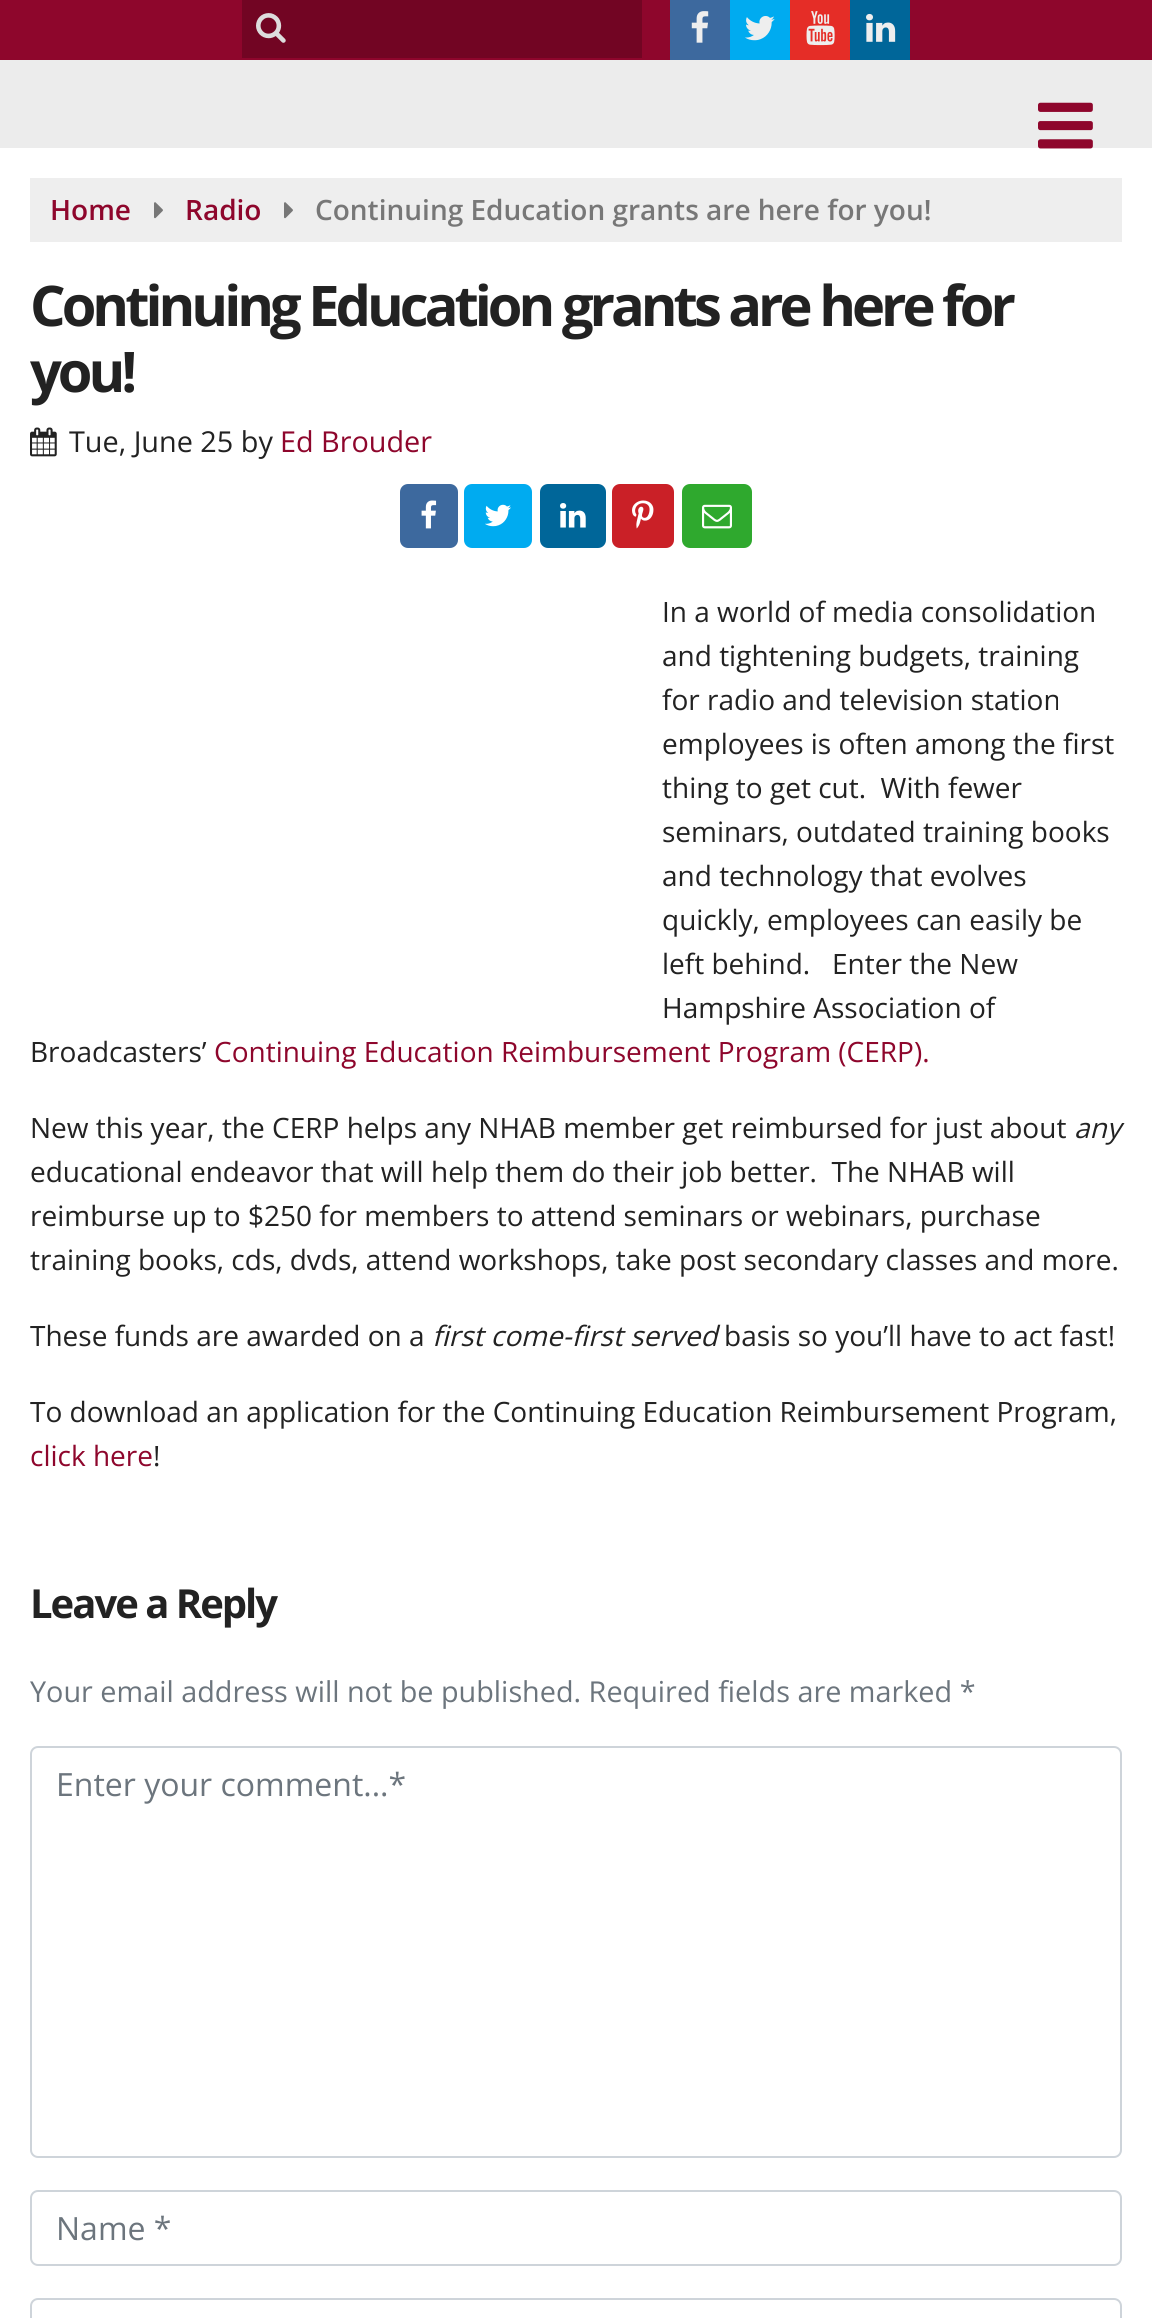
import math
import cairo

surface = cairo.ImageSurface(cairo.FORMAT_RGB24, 1152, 2318)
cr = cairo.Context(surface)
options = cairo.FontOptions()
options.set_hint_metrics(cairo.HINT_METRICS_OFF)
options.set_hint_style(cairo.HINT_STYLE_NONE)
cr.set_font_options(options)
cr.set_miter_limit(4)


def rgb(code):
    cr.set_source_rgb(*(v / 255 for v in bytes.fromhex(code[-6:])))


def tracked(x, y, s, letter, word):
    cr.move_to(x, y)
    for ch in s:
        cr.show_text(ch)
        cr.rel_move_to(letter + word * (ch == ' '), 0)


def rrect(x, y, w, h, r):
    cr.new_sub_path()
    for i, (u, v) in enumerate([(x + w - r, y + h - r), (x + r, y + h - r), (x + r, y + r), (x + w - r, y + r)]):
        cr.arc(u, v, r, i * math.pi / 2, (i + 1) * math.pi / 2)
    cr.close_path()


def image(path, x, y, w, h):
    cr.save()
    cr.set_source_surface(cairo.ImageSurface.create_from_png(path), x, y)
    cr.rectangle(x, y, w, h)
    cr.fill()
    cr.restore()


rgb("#ffffff")
cr.paint()
rgb("#8e062c")
cr.rectangle(0, 0, 1152, 60)
cr.fill()
rgb("#720523")
cr.rectangle(242, 0, 400, 58)
cr.fill()
image("img/1.png", 256, 13, 30, 30)
rgb("#3d699e")
cr.rectangle(670, 0, 60, 60)
cr.fill()
image("img/2.png", 691, 11, 18, 32)
rgb("#00abf0")
cr.rectangle(730, 0, 60, 60)
cr.fill()
image("img/3.png", 745, 16, 30, 25)
rgb("#e52d27")
cr.rectangle(790, 0, 60, 60)
cr.fill()
image("img/4.png", 806, 11, 29, 35)
rgb("#006699")
cr.rectangle(850, 0, 60, 60)
cr.fill()
image("img/5.png", 866, 13, 30, 29)
rgb("#ececec")
cr.rectangle(0, 60, 1152, 88)
cr.fill()
image("img/6.png", 1038, 102, 55, 47)
rgb("#eeeeee")
cr.rectangle(30, 178, 1092, 64)
cr.fill()
image("img/7.png", 154, 202, 9, 17)
image("img/7.png", 284, 202, 9, 17)
image("img/8.png", 30, 427, 27, 30)
rgb("#3d699e")
rrect(400, 484, 58, 64, 8)
cr.fill()
image("img/9.png", 421, 500, 16, 29)
rgb("#00abf0")
rrect(464, 484, 68, 64, 8)
cr.fill()
image("img/10.png", 485, 504, 26, 23)
rgb("#006699")
rrect(540, 484, 66, 64, 8)
cr.fill()
image("img/11.png", 560, 503, 26, 25)
rgb("#ca2027")
rrect(612, 484, 62, 64, 8)
cr.fill()
image("img/12.png", 632, 500, 22, 29)
rgb("#2fa92e")
rrect(682, 484, 70, 64, 8)
cr.fill()
image("img/13.png", 702, 504, 30, 25)
rrect(31, 1747, 1090, 410, 7)
rgb("#ced4da")
cr.stroke()
rrect(31, 2191, 1090, 74, 7)
cr.stroke()
rrect(31, 2299, 1090, 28, 7)
cr.stroke()
cr.select_font_face("Open Sans SemiBold")
cr.set_font_size(28)
rgb("#8e062c")
cr.move_to(50, 220)
cr.show_text("Home")
cr.move_to(185, 220)
cr.show_text("Radio")
rgb("#777777")
cr.move_to(315, 220)
cr.show_text("Continuing Education grants are here for you!")
cr.select_font_face("Open Sans", cairo.FONT_SLANT_NORMAL, cairo.FONT_WEIGHT_BOLD)
cr.set_font_size(56)
rgb("#222222")
tracked(30, 326, "Continuing Education grants are here for", -4, 0)
tracked(30, 392, "you!", -4, 0)
cr.select_font_face("Open Sans")
cr.set_font_size(28.8)
cr.move_to(69, 452)
cr.show_text("Tue, June 25 by")
rgb("#8e062c")
cr.move_to(280, 452)
cr.show_text("Ed Brouder")
cr.set_font_size(28)
rgb("#222222")
for x, y, s in [
    (662, 622, "In a world of media consolidation"),
    (662, 666, "and tightening budgets, training"),
    (662, 710, "for radio and television station"),
    (662, 754, "employees is often among the first"),
    (662, 798, "thing to get cut.  With fewer"),
    (662, 842, "seminars, outdated training books"),
    (662, 886, "and technology that evolves"),
    (662, 930, "quickly, employees can easily be"),
    (662, 974, "left behind.   Enter the New"),
    (662, 1018, "Hampshire Association of"),
    (30, 1062, "Broadcasters’"),
]:
    cr.move_to(x, y)
    cr.show_text(s)
rgb("#8e062c")
cr.move_to(214, 1062)
cr.show_text("Continuing Education Reimbursement Program (CERP).")
rgb("#222222")
cr.move_to(30, 1138)
cr.show_text("New this year, the CERP helps any NHAB member get reimbursed for just about")
cr.select_font_face("Open Sans", cairo.FONT_SLANT_ITALIC)
cr.move_to(1074, 1138)
cr.show_text("any")
cr.select_font_face("Open Sans")
for x, y, s in [
    (30, 1182, "educational endeavor that will help them do their job better.  The NHAB will"),
    (30, 1226, "reimburse up to $250 for members to attend seminars or webinars, purchase"),
    (30, 1270, "training books, cds, dvds, attend workshops, take post secondary classes and more."),
    (30, 1346, "These funds are awarded on a"),
]:
    cr.move_to(x, y)
    cr.show_text(s)
cr.select_font_face("Open Sans", cairo.FONT_SLANT_ITALIC)
cr.move_to(432, 1346)
cr.show_text("first come-first served")
cr.select_font_face("Open Sans")
cr.move_to(724, 1346)
cr.show_text("basis so you’ll have to act fast!")
cr.move_to(30, 1422)
cr.show_text("To download an application for the Continuing Education Reimbursement Program,")
rgb("#8e062c")
cr.move_to(30, 1466)
cr.show_text("click here")
rgb("#222222")
cr.move_to(153, 1466)
cr.show_text("!")
cr.select_font_face("Open Sans", cairo.FONT_SLANT_NORMAL, cairo.FONT_WEIGHT_BOLD)
cr.set_font_size(40)
tracked(30, 1618, "Leave a Reply", -2, 0)
cr.select_font_face("Open Sans")
cr.set_font_size(28.8)
rgb("#6c757d")
cr.move_to(30, 1702)
cr.show_text("Your email address will not be published. Required fields are marked *")
cr.set_font_size(32)
cr.move_to(56, 1796)
cr.show_text("Enter your comment...*")
cr.move_to(56, 2240)
cr.show_text("Name *")
surface.write_to_png("page.png")
